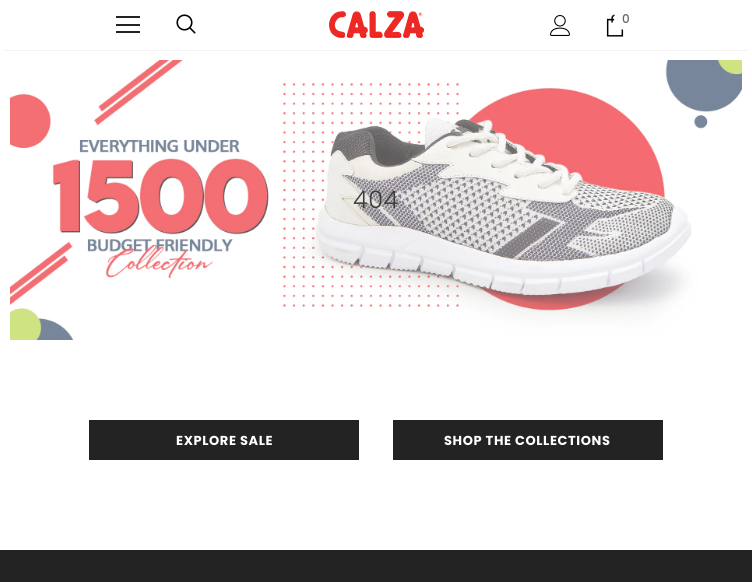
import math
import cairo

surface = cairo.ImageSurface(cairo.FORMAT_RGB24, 752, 582)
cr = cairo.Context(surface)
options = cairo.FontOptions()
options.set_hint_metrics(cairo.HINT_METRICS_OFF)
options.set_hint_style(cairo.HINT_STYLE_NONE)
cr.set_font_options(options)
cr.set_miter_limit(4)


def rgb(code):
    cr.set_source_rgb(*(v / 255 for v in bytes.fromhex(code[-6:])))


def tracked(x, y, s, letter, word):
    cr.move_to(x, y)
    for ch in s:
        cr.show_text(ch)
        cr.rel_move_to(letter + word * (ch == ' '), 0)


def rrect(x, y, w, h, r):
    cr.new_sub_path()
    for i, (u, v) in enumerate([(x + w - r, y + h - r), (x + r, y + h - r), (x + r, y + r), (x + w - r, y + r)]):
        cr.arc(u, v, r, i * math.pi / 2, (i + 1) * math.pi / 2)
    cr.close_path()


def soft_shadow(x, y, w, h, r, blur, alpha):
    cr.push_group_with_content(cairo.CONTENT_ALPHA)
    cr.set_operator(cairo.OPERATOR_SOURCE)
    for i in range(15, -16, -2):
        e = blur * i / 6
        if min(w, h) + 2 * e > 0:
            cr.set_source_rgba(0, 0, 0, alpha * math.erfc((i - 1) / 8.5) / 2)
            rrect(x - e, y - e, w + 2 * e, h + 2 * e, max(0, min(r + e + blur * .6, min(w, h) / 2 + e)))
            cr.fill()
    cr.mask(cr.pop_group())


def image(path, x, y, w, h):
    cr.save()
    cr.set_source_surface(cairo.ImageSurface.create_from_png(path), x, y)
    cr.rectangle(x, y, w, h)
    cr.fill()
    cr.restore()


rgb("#ffffff")
cr.paint()
cr.save()
cr.rectangle(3, 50, 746, 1)
cr.clip()
rgb("#000000")
soft_shadow(3, 6, 746, 44, 0, 1.5, 0.12)
cr.restore()
for x, y, w, h, color in [
    (116, 16, 24, 2, "#232323"),
    (116, 24, 24, 2, "#232323"),
    (116, 31, 24, 2, "#232323"),
]:
    rgb(color)
    cr.rectangle(x, y, w, h)
    cr.fill()
image("img/1.png", 176, 14, 20, 20)
image("img/2.png", 329, 11, 95, 27)
image("img/3.png", 550, 15, 20, 21)
image("img/4.png", 606, 14, 18, 23)
rgb("#ffffff")
cr.arc(625.5, 18.5, 11.5, 0, 2 * math.pi)
cr.fill()
image("img/5.png", 10, 60, 732, 280)
for x, y, w, h, color in [
    (89, 420, 270, 40, "#232323"),
    (393, 420, 270, 40, "#232323"),
    (0, 550, 752, 32, "#232323"),
]:
    rgb(color)
    cr.rectangle(x, y, w, h)
    cr.fill()
cr.select_font_face("Poppins Medium")
cr.set_font_size(12)
rgb("#646464")
cr.move_to(622, 23)
cr.show_text("0")
cr.select_font_face("Poppins Light")
cr.set_font_size(24)
rgb("#3c3c3c")
tracked(353, 208, "404", 0.5, 0)
cr.select_font_face("Poppins", cairo.FONT_SLANT_NORMAL, cairo.FONT_WEIGHT_BOLD)
cr.set_font_size(13)
rgb("#ffffff")
tracked(176, 445, "EXPLORE SALE", 0.6, 0)
tracked(444, 445, "SHOP THE COLLECTIONS", 0.6, 0)
surface.write_to_png("page.png")
